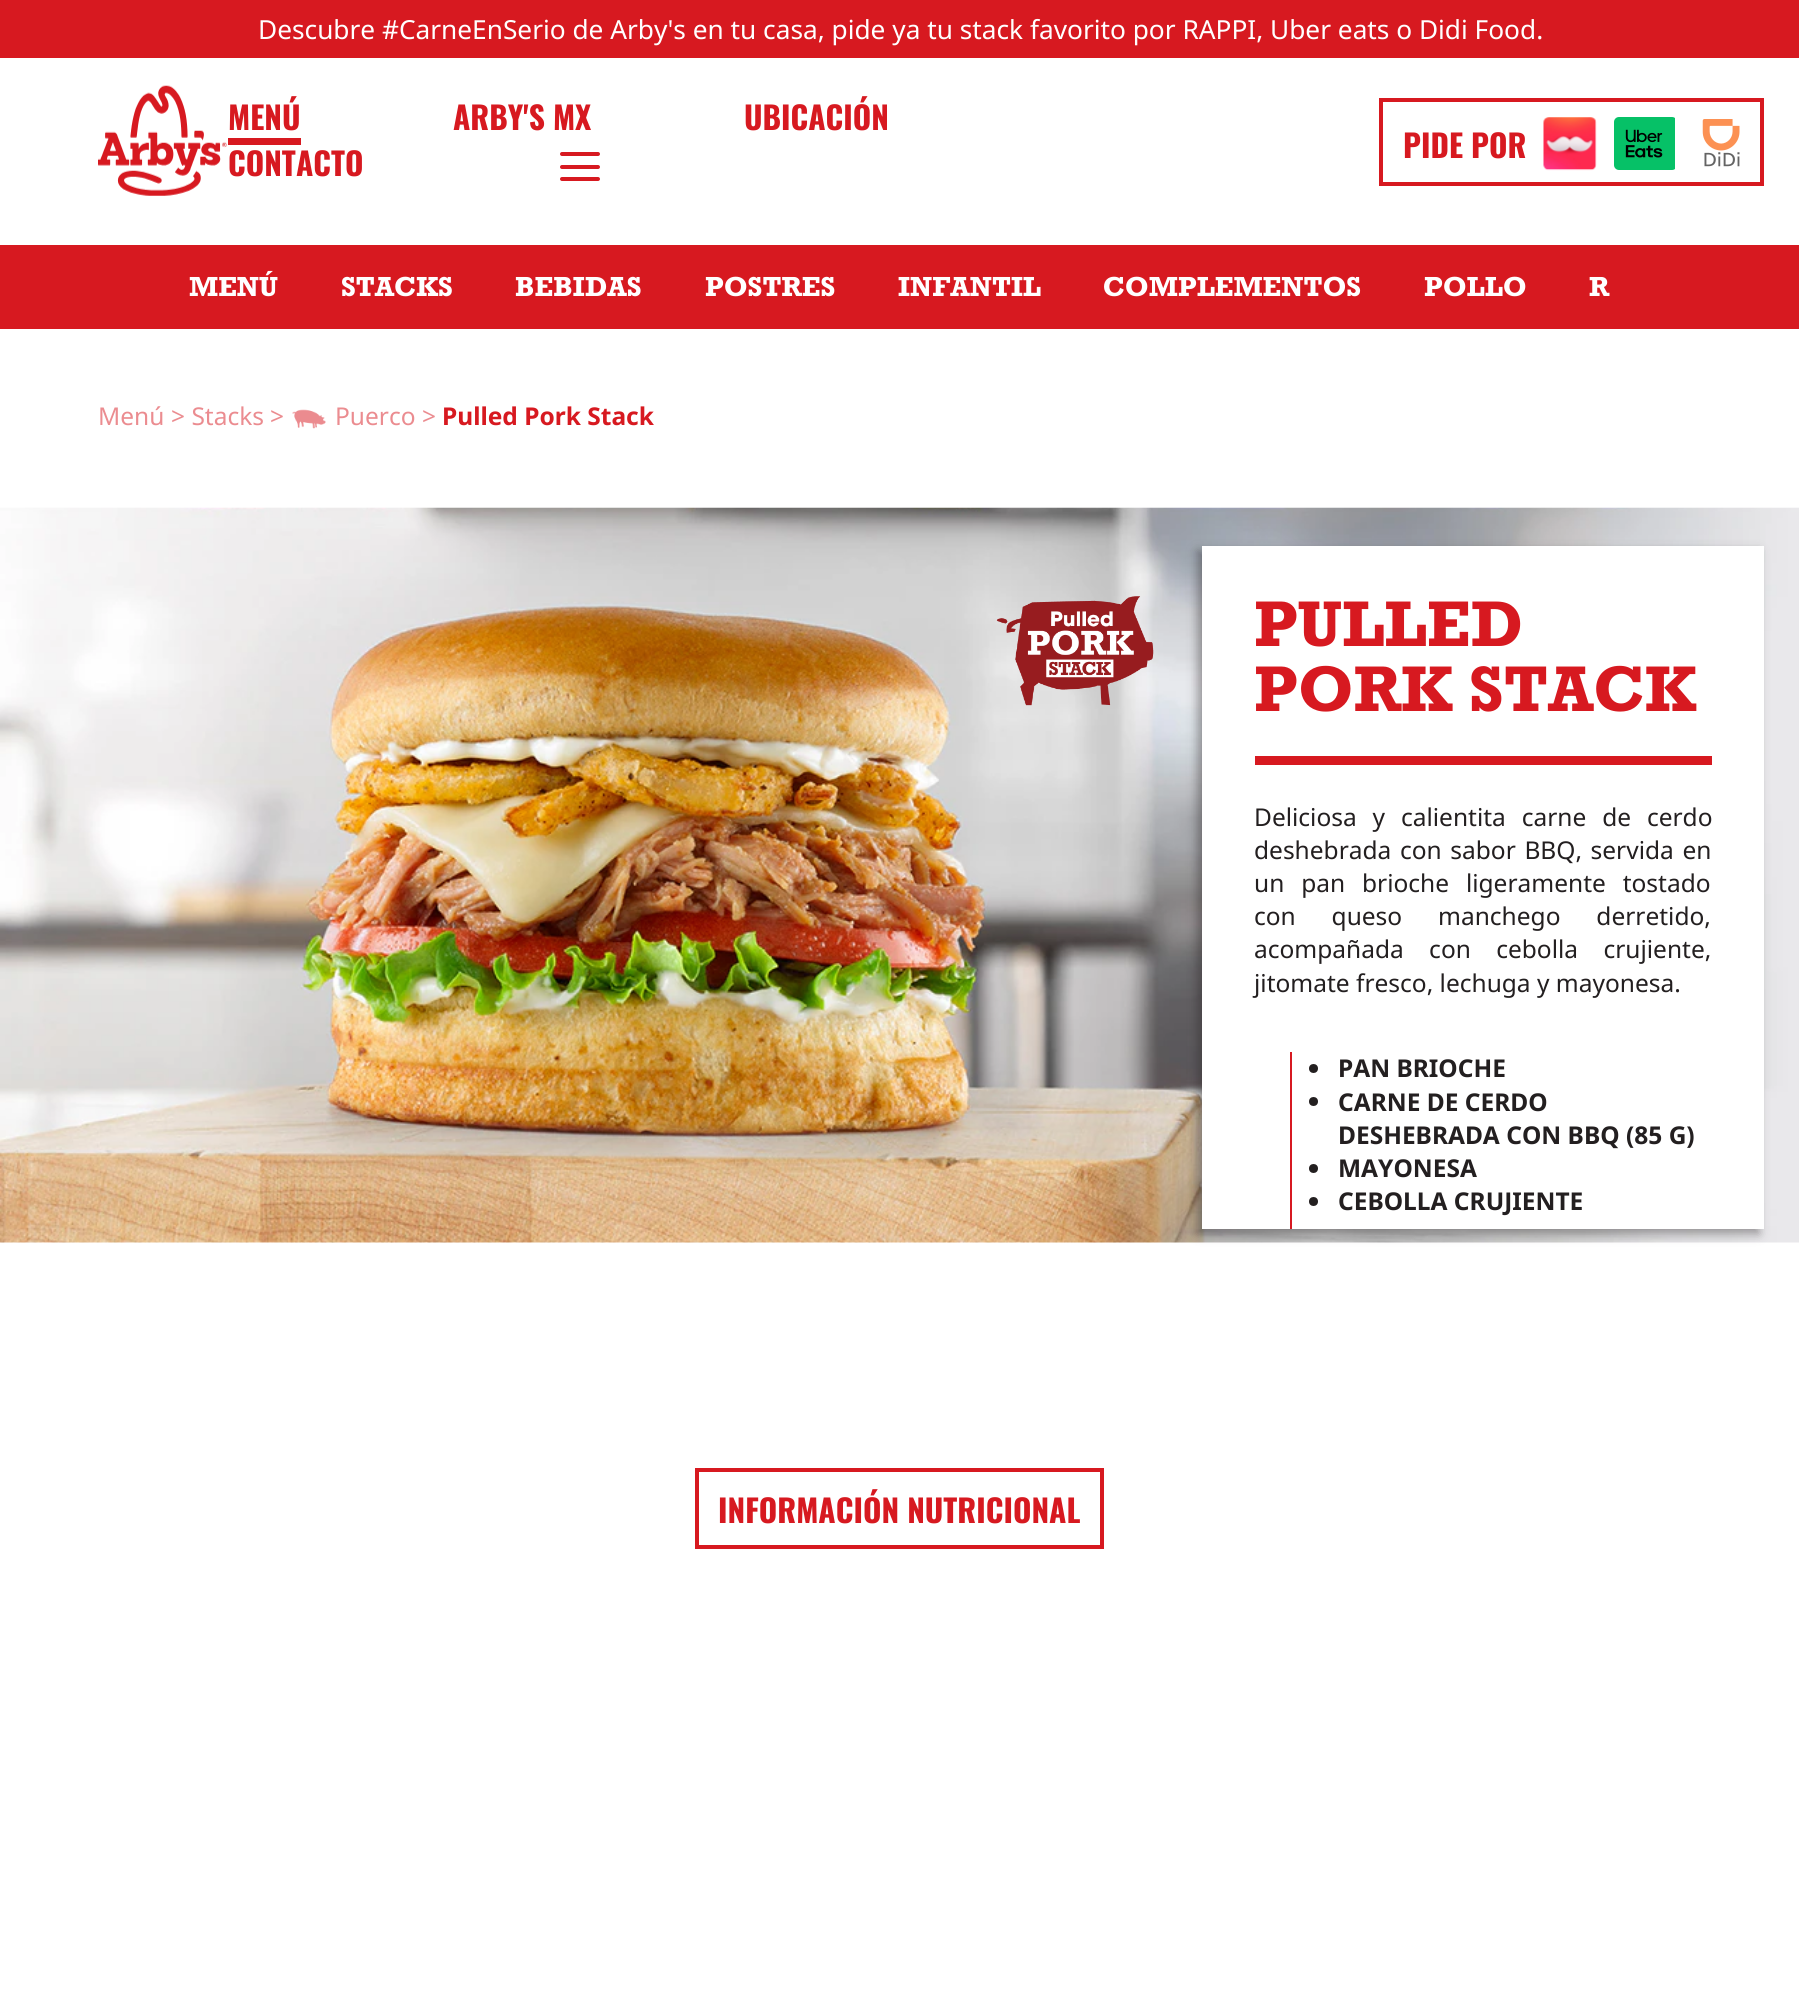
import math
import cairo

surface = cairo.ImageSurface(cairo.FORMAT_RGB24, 1799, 2006)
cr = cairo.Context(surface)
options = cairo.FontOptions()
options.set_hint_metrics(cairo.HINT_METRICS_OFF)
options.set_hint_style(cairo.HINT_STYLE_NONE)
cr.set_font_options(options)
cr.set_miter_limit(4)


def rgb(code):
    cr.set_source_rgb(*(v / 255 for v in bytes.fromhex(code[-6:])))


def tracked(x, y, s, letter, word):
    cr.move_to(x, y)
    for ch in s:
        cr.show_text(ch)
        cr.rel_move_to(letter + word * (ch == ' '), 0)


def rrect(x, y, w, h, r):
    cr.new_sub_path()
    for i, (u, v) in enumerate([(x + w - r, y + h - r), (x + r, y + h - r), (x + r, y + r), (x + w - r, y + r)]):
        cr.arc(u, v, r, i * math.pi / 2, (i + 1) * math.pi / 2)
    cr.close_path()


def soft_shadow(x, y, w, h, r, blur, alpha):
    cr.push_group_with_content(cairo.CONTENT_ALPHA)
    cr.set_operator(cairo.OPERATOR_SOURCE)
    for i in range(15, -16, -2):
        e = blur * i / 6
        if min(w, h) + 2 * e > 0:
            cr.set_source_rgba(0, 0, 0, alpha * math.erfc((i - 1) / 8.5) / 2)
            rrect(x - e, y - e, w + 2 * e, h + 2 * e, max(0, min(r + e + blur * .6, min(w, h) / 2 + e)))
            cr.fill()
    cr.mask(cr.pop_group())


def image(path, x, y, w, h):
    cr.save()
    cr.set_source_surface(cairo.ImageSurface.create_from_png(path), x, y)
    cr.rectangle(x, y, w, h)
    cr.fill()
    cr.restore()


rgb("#ffffff")
cr.paint()
rgb("#d71920")
cr.rectangle(0, 0, 1799, 58)
cr.fill()
image("img/1.png", 98, 85, 129, 111)
cr.rectangle(228, 138, 73, 7)
cr.fill()
rrect(560, 152, 40, 4, 2)
cr.fill()
rrect(560, 165, 40, 4, 2)
cr.fill()
rrect(560, 177, 40, 4, 2)
cr.fill()
cr.rectangle(1381, 100, 381, 84)
cr.set_line_width(4)
cr.stroke()
image("img/2.png", 1543, 117, 54, 54)
image("img/3.png", 1614, 117, 61, 53)
image("img/4.png", 1702, 119, 38, 48)
cr.rectangle(0, 245, 1799, 84)
cr.fill()
image("img/5.png", 292, 409, 34, 20)
image("img/6.png", 0, 507, 1799, 736)
image("img/7.png", 996, 596, 158, 110)
rgb("#231f20")
soft_shadow(1197, 551, 562, 683, 0, 5, 0.4)
for x, y, w, h, color in [
    (1202, 546, 562, 683, "#ffffff"),
    (1255, 756, 457, 9, "#d71920"),
    (1290, 1052, 2, 177, "#d71921"),
]:
    rgb(color)
    cr.rectangle(x, y, w, h)
    cr.fill()
rgb("#231f20")
cr.arc(1313.5, 1068.5, 4.5, 0, 2 * math.pi)
cr.fill()
cr.arc(1313.5, 1101.5, 4.5, 0, 2 * math.pi)
cr.fill()
cr.arc(1313.5, 1168.5, 4.5, 0, 2 * math.pi)
cr.fill()
cr.arc(1313.5, 1201.5, 4.5, 0, 2 * math.pi)
cr.fill()
cr.rectangle(697, 1470, 405, 77)
rgb("#d71920")
cr.stroke()
cr.select_font_face("Noto Sans")
cr.set_font_size(26.25)
rgb("#ffffff")
cr.move_to(258, 39)
cr.show_text("Descubre #CarneEnSerio de Arby's en tu casa, pide ya tu stack favorito por RAPPI, Uber eats o Didi Food.")
cr.select_font_face("Oswald", cairo.FONT_SLANT_NORMAL, cairo.FONT_WEIGHT_BOLD)
cr.set_font_size(31.5)
rgb("#d71920")
for x, y, s in [
    (228, 130, "MENÚ"),
    (453, 130, "ARBY'S MX"),
    (744, 130, "UBICACIÓN"),
    (228, 176, "CONTACTO"),
    (1403, 158, "PIDE POR"),
]:
    cr.move_to(x, y)
    cr.show_text(s)
cr.select_font_face("Rockwell", cairo.FONT_SLANT_NORMAL, cairo.FONT_WEIGHT_BOLD)
cr.set_font_size(28)
rgb("#ffffff")
for x, y, s in [
    (189, 296, "MENÚ"),
    (341, 296, "STACKS"),
    (515, 296, "BEBIDAS"),
    (705, 296, "POSTRES"),
    (898, 296, "INFANTIL"),
    (1103, 296, "COMPLEMENTOS"),
    (1424, 296, "POLLO"),
    (1589, 296, "R"),
]:
    cr.move_to(x, y)
    cr.show_text(s)
cr.select_font_face("Noto Sans")
cr.set_font_size(24.5)
rgb("#eb8c90")
for x, y, s in [
    (98, 425, "Menú"),
    (171, 425, "> Stacks"),
    (270, 425, ">"),
    (335, 425, "Puerco"),
    (422, 425, ">"),
]:
    cr.move_to(x, y)
    cr.show_text(s)
cr.select_font_face("Noto Sans", cairo.FONT_SLANT_NORMAL, cairo.FONT_WEIGHT_BOLD)
rgb("#d71920")
cr.move_to(442, 425)
cr.show_text("Pulled Pork Stack")
cr.select_font_face("Rockwell", cairo.FONT_SLANT_NORMAL, cairo.FONT_WEIGHT_BOLD)
cr.set_font_size(65.5)
cr.move_to(1254, 646)
cr.show_text("PULLED")
cr.move_to(1254, 711)
cr.show_text("PORK STACK")
cr.select_font_face("Noto Sans")
cr.set_font_size(24.5)
rgb("#231f20")
tracked(1254, 826, "Deliciosa y calientita carne de cerdo", 0, 9.5)
tracked(1254, 859, "deshebrada con sabor BBQ, servida en", 0, 2.25)
tracked(1254, 892, "un pan brioche ligeramente tostado", 0, 10.5)
tracked(1254, 925, "con queso manchego derretido,", 0, 29.5)
tracked(1254, 958, "acompañada con cebolla crujiente,", 0, 19)
cr.move_to(1254, 992)
cr.show_text("jitomate fresco, lechuga y mayonesa.")
cr.select_font_face("Noto Sans", cairo.FONT_SLANT_NORMAL, cairo.FONT_WEIGHT_BOLD)
for x, y, s in [
    (1338, 1077, "PAN BRIOCHE"),
    (1338, 1111, "CARNE DE CERDO"),
    (1338, 1144, "DESHEBRADA CON BBQ (85 G)"),
    (1338, 1177, "MAYONESA"),
    (1338, 1210, "CEBOLLA CRUJIENTE"),
]:
    cr.move_to(x, y)
    cr.show_text(s)
cr.select_font_face("Oswald", cairo.FONT_SLANT_NORMAL, cairo.FONT_WEIGHT_BOLD)
cr.set_font_size(31.5)
rgb("#d71920")
cr.move_to(718, 1523)
cr.show_text("INFORMACIÓN NUTRICIONAL")
surface.write_to_png("page.png")
